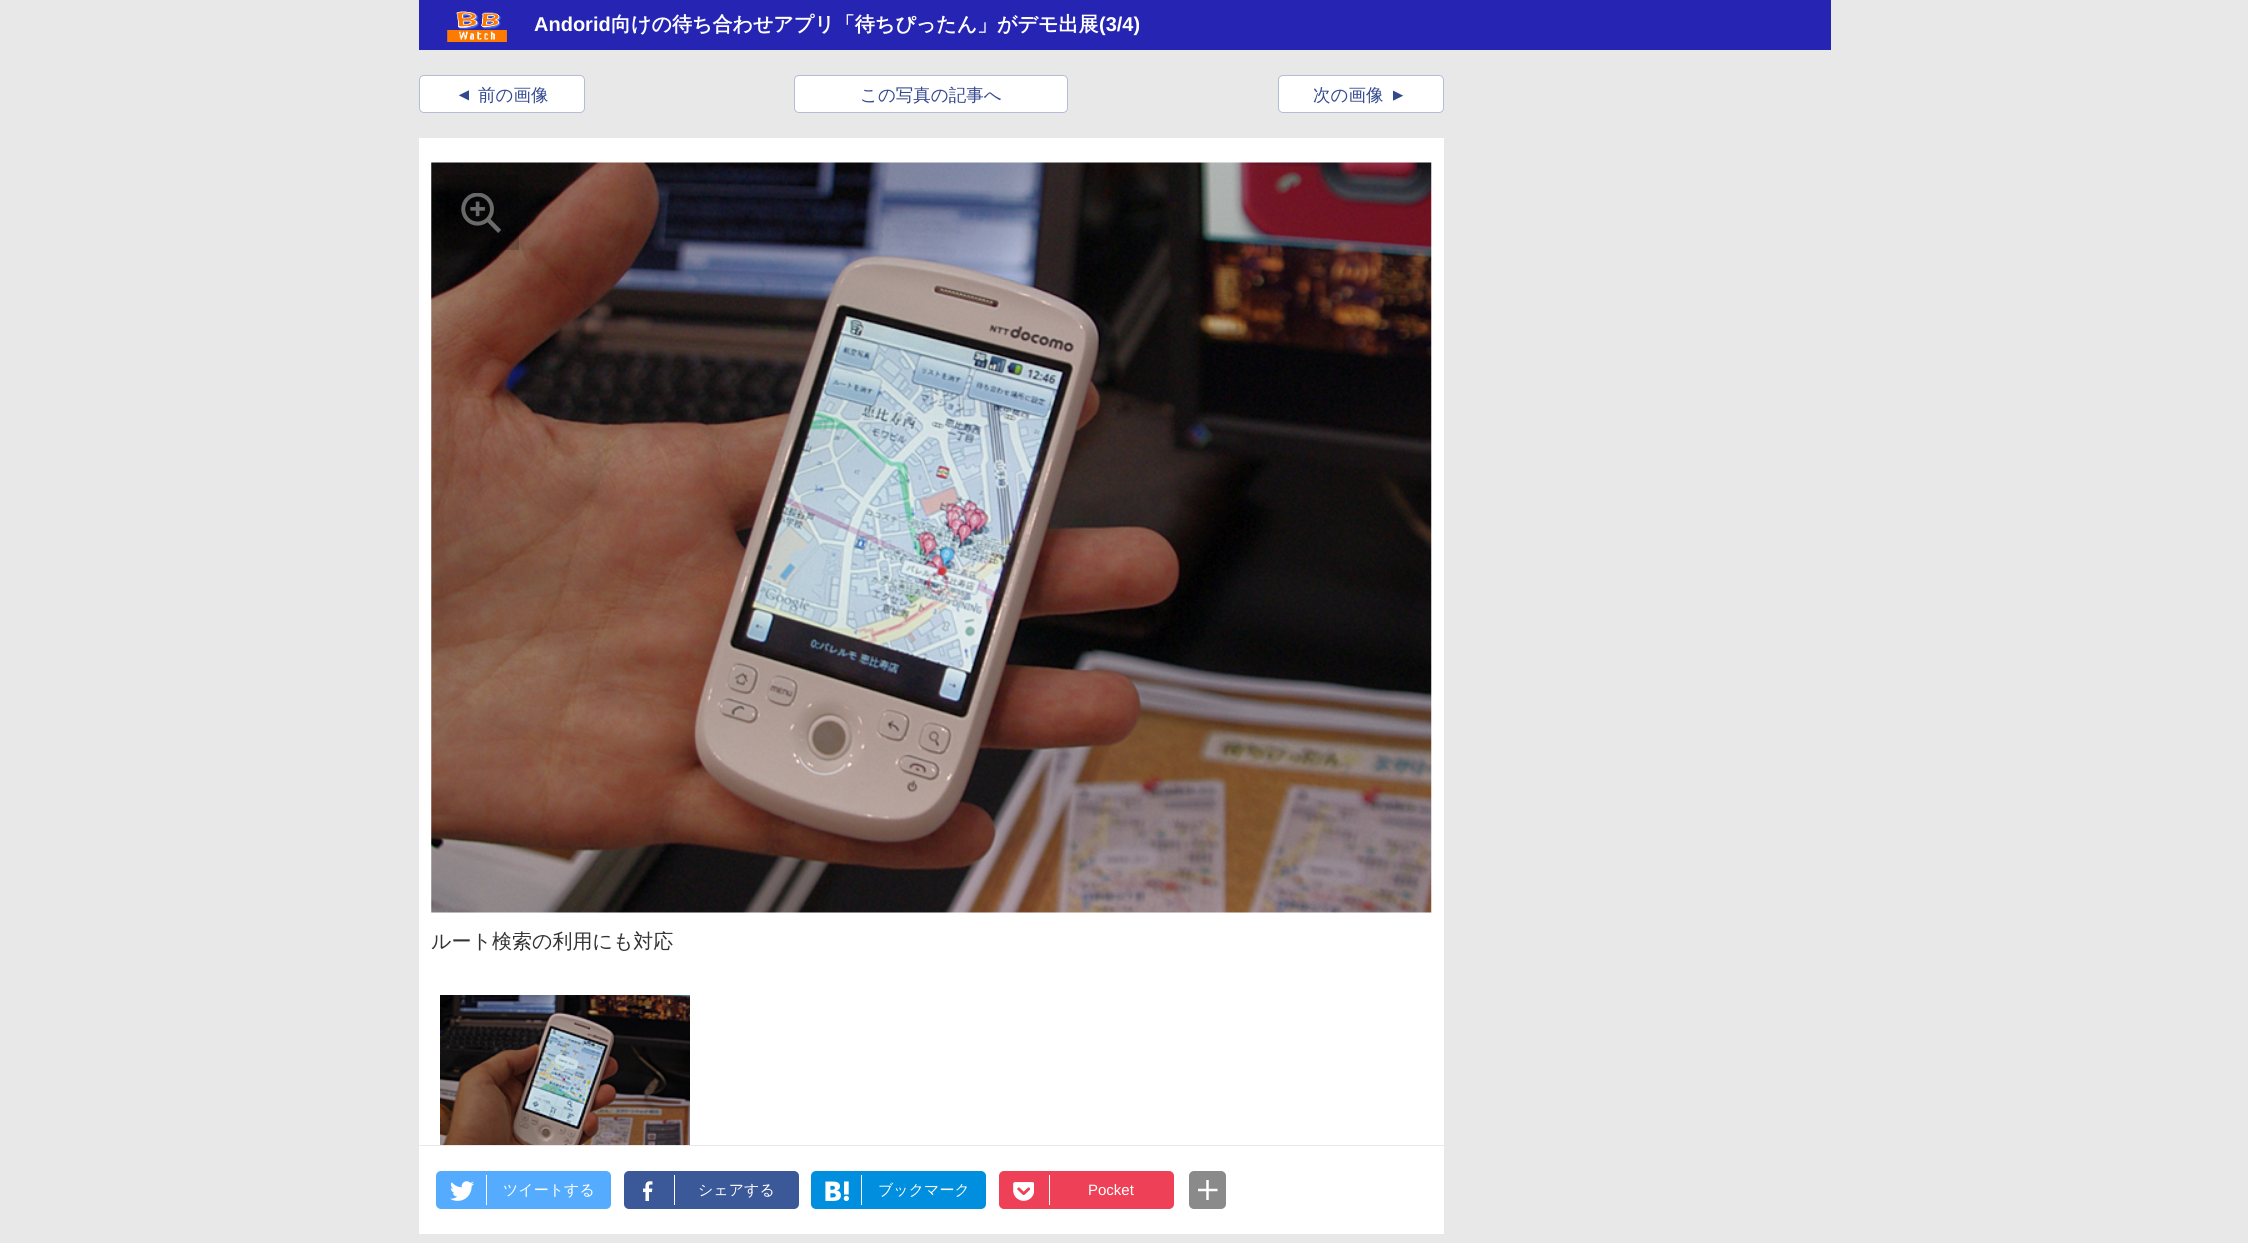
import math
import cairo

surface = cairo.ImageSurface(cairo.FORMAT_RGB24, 2248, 1243)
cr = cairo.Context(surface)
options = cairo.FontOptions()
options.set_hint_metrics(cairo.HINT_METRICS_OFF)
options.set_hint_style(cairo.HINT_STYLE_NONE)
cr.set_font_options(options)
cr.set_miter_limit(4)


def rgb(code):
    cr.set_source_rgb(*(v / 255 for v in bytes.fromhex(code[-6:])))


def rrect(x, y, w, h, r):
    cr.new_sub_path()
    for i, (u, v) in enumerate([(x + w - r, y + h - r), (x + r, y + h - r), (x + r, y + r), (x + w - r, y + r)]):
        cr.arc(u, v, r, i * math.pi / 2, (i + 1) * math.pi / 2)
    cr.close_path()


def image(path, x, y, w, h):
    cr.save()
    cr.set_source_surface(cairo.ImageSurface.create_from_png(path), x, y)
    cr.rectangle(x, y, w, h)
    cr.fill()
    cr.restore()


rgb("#e8e8e8")
cr.paint()
rgb("#2624b3")
cr.rectangle(419, 0, 1412, 50)
cr.fill()
image("img/1.png", 447, 11, 60, 31)
rgb("#ffffff")
rrect(419, 75, 166, 38, 5)
cr.fill()
rrect(419.5, 75.5, 165, 37, 4.5)
cr.set_source_rgba(0.196, 0.286, 0.557, 0.36)
cr.set_line_width(1)
cr.stroke()
rgb("#ffffff")
rrect(794, 75, 274, 38, 5)
cr.fill()
rrect(794.5, 75.5, 273, 37, 4.5)
cr.set_source_rgba(0.196, 0.286, 0.557, 0.36)
cr.stroke()
rgb("#ffffff")
rrect(1278, 75, 166, 38, 5)
cr.fill()
rrect(1278.5, 75.5, 165, 37, 4.5)
cr.set_source_rgba(0.196, 0.286, 0.557, 0.36)
cr.stroke()
rgb("#ffffff")
cr.rectangle(419, 138, 1025, 1007)
cr.fill()
image("img/2.png", 431, 162, 1001, 751)
cr.set_source_rgba(0, 0, 0, 0.2)
cr.rectangle(444, 175, 75, 75)
cr.fill()
image("img/3.png", 461, 193, 40, 40)
image("img/4.png", 440, 995, 250, 150)
rgb("#ffffff")
cr.rectangle(419, 1146, 1025, 88)
cr.fill()
rgb("#55acfe")
rrect(436, 1171, 175, 38, 5)
cr.fill()
image("img/5.png", 450, 1181, 24, 20)
rgb("#ffffff")
cr.rectangle(486, 1175, 1, 30)
cr.fill()
rgb("#3b5998")
rrect(624, 1171, 175, 38, 5)
cr.fill()
image("img/6.png", 643, 1181, 10, 20)
rgb("#ffffff")
cr.rectangle(674, 1175, 1, 30)
cr.fill()
rgb("#008fde")
rrect(811, 1171, 175, 38, 5)
cr.fill()
image("img/7.png", 825, 1181, 24, 20)
rgb("#ffffff")
cr.rectangle(861, 1175, 1, 30)
cr.fill()
rgb("#ee4056")
rrect(999, 1171, 175, 38, 5)
cr.fill()
image("img/8.png", 1013, 1182, 21, 19)
rgb("#ffffff")
cr.rectangle(1049, 1175, 1, 30)
cr.fill()
rgb("#8a8a8a")
rrect(1189, 1171, 37, 38, 5)
cr.fill()
image("img/9.png", 1198, 1180, 20, 20)
cr.select_font_face("Liberation Sans", cairo.FONT_SLANT_NORMAL, cairo.FONT_WEIGHT_BOLD)
cr.set_font_size(20)
rgb("#ffffff")
cr.move_to(534, 31)
cr.show_text("Andorid")
cr.select_font_face("WenQuanYi Zen Hei", cairo.FONT_SLANT_NORMAL, cairo.FONT_WEIGHT_BOLD)
cr.move_to(611, 31)
cr.show_text("向けの待ち合わせアプリ「待ちぴったん」がデモ出展")
cr.select_font_face("Liberation Sans", cairo.FONT_SLANT_NORMAL, cairo.FONT_WEIGHT_BOLD)
cr.move_to(1099, 31)
cr.show_text("(3/4)")
cr.select_font_face("Liberation Sans")
cr.set_font_size(17.5)
rgb("#33498e")
cr.save()
cr.translate(469, 104)
cr.rotate(-90 * math.pi / 180)
cr.move_to(0, 0)
cr.show_text("▲")
cr.restore()
cr.select_font_face("WenQuanYi Zen Hei Medium")
for x, y, s in [
    (478, 101, "前の画像"),
    (860, 101, "この写真の記事へ"),
    (1313, 101, "次の画像"),
]:
    cr.move_to(x, y)
    cr.show_text(s)
cr.select_font_face("Liberation Sans")
cr.save()
cr.translate(1393, 87)
cr.rotate(90 * math.pi / 180)
cr.move_to(0, 0)
cr.show_text("▲")
cr.restore()
cr.select_font_face("WenQuanYi Zen Hei Medium")
cr.set_font_size(20)
rgb("#333333")
cr.move_to(431, 948)
cr.show_text("ルート検索の利用にも対応")
cr.set_font_size(15)
rgb("#ffffff")
for x, y, s in [
    (503, 1195, "ツイートする"),
    (698, 1195, "シェアする"),
    (878, 1195, "ブックマーク"),
]:
    cr.move_to(x, y)
    cr.show_text(s)
cr.select_font_face("Liberation Sans")
cr.move_to(1088, 1195)
cr.show_text("Pocket")
surface.write_to_png("page.png")
